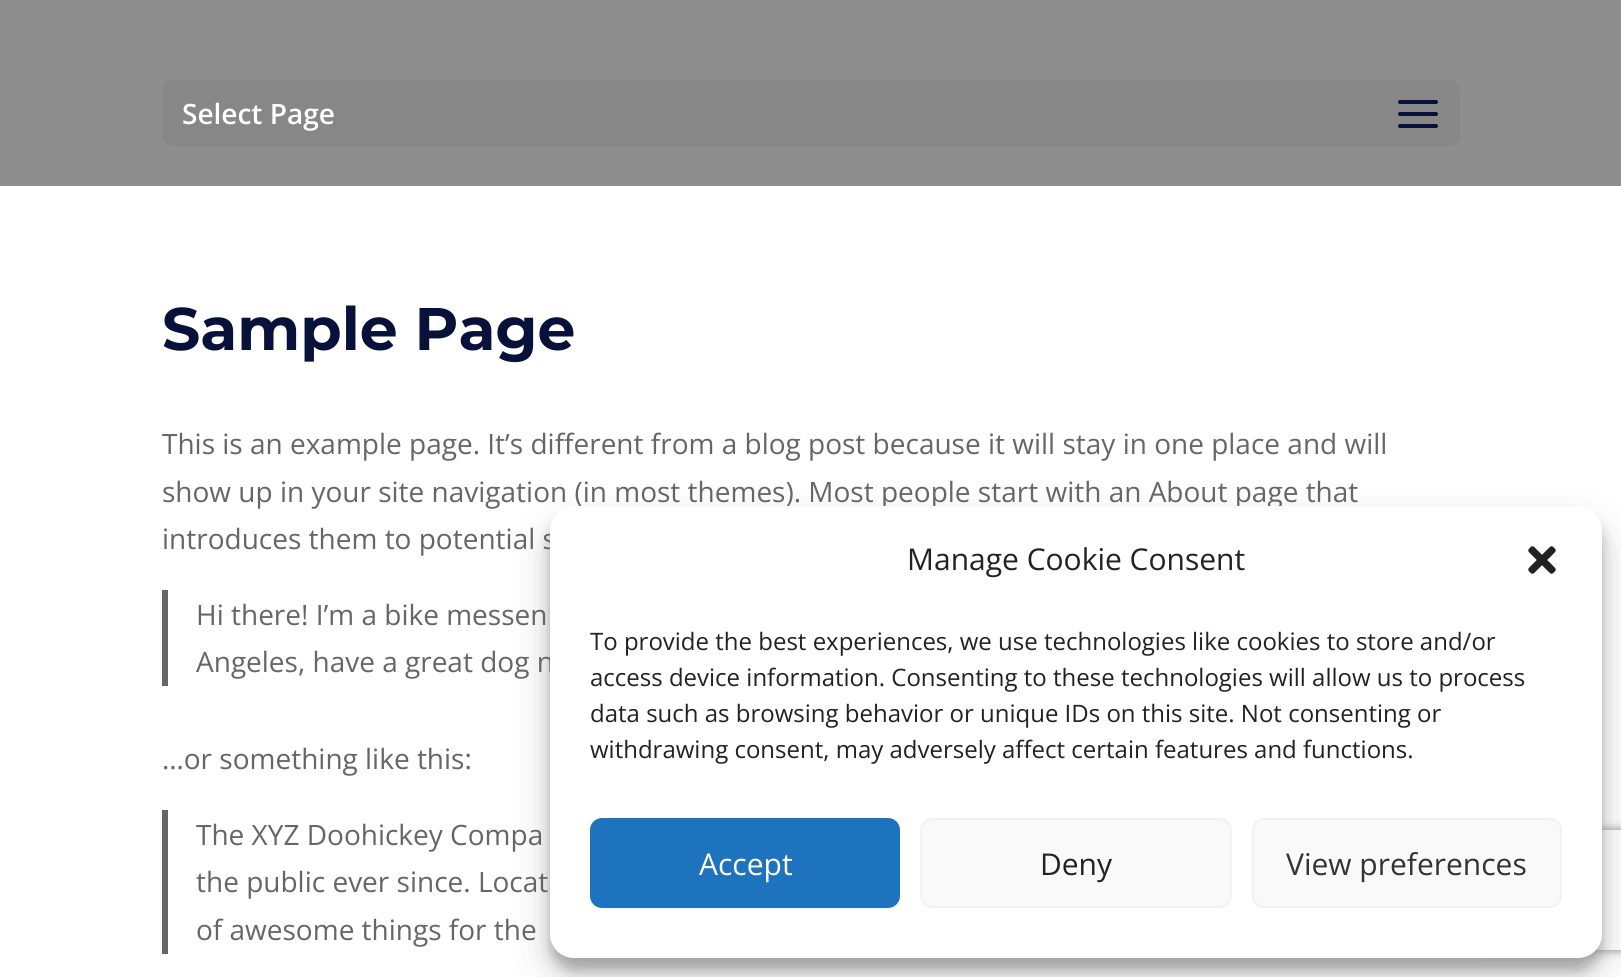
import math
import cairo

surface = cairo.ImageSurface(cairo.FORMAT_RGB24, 1621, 977)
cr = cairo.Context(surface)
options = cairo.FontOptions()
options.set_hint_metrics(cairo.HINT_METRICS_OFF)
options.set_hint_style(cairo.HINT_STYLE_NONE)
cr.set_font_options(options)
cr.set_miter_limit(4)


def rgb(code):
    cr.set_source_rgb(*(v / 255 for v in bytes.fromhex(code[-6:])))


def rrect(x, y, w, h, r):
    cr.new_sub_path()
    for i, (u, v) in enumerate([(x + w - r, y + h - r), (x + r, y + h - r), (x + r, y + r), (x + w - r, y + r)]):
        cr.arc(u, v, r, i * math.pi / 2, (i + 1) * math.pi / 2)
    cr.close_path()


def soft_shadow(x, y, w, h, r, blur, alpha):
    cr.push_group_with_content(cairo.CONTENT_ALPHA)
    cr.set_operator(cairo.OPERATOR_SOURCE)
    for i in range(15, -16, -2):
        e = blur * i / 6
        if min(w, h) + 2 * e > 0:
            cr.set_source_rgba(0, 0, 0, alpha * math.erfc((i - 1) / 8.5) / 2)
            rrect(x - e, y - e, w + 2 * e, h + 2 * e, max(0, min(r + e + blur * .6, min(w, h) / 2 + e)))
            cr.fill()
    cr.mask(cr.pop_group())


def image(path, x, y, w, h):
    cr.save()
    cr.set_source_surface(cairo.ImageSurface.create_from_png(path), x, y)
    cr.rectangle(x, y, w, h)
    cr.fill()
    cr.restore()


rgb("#ffffff")
cr.paint()
rgb("#8e8e8e")
cr.rectangle(0, 0, 1621, 186)
cr.fill()
rgb("#878787")
rrect(162, 80, 1298, 66, 10)
cr.fill()
image("img/1.png", 1398, 100, 40, 28)
rgb("#666666")
cr.rectangle(162, 590, 6, 96)
cr.fill()
cr.rectangle(162, 810, 6, 144)
cr.fill()
rgb("#000000")
soft_shadow(550, 518, 1052, 452, 24, 6, 0.23)
soft_shadow(550, 526, 1052, 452, 24, 20, 0.19)
cr.save()
cr.set_fill_rule(cairo.FILL_RULE_EVEN_ODD)
cr.new_path()
cr.move_to(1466, 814)
cr.line_to(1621, 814)
cr.line_to(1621, 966)
cr.line_to(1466, 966)
cr.close_path()
cr.move_to(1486, 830)
cr.line_to(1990, 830)
cr.curve_to(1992, 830, 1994, 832, 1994, 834)
cr.line_to(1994, 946)
cr.curve_to(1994, 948, 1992, 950, 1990, 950)
cr.line_to(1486, 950)
cr.curve_to(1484, 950, 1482, 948, 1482, 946)
cr.line_to(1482, 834)
cr.curve_to(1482, 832, 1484, 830, 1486, 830)
cr.close_path()
cr.clip()
rgb("#808080")
soft_shadow(1482, 830, 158, 120, 4, 5, 1)
cr.restore()
cr.select_font_face("Open Sans SemiBold")
cr.set_font_size(28)
rgb("#ffffff")
cr.move_to(182, 124)
cr.show_text("Select Page")
cr.select_font_face("Montserrat", cairo.FONT_SLANT_NORMAL, cairo.FONT_WEIGHT_BOLD)
cr.set_font_size(60)
rgb("#08113a")
cr.move_to(162, 350)
cr.show_text("Sample Page")
cr.select_font_face("Open Sans")
cr.set_font_size(28)
rgb("#666666")
for x, y, s in [
    (162, 454, "This is an example page. It’s different from a blog post because it will stay in one place and will"),
    (162, 502, "show up in your site navigation (in most themes). Most people start with an About page that"),
    (162, 549, "introduces them to potential s"),
    (196, 625, "Hi there! I’m a bike messen"),
    (196, 672, "Angeles, have a great dog n"),
    (162, 769, "…or something like this:"),
    (196, 845, "The XYZ Doohickey Compa"),
    (196, 892, "the public ever since. Locat"),
    (196, 940, "of awesome things for the"),
]:
    cr.move_to(x, y)
    cr.show_text(s)
rgb("#ffffff")
rrect(550, 506, 1052, 452, 24)
cr.fill()
cr.set_font_size(30)
rgb("#222222")
cr.move_to(907, 570)
cr.show_text("Manage Cookie Consent")
image("img/2.png", 1528, 546, 28, 28)
cr.set_font_size(24)
for x, y, s in [
    (590, 650, "To provide the best experiences, we use technologies like cookies to store and/or"),
    (590, 686, "access device information. Consenting to these technologies will allow us to process"),
    (590, 722, "data such as browsing behavior or unique IDs on this site. Not consenting or"),
    (590, 758, "withdrawing consent, may adversely affect certain features and functions."),
]:
    cr.move_to(x, y)
    cr.show_text(s)
rgb("#1e73be")
rrect(591, 819, 308, 88, 11)
cr.fill_preserve()
cr.stroke()
cr.set_font_size(30)
rgb("#ffffff")
cr.move_to(699, 875)
cr.show_text("Accept")
rgb("#f9f9f9")
rrect(921, 819, 310, 88, 11)
cr.fill_preserve()
rgb("#f2f2f2")
cr.stroke()
rgb("#222222")
cr.move_to(1040, 875)
cr.show_text("Deny")
rgb("#f9f9f9")
rrect(1253, 819, 308, 88, 11)
cr.fill_preserve()
rgb("#f2f2f2")
cr.stroke()
rgb("#333333")
cr.move_to(1286, 875)
cr.show_text("View preferences")
surface.write_to_png("page.png")
